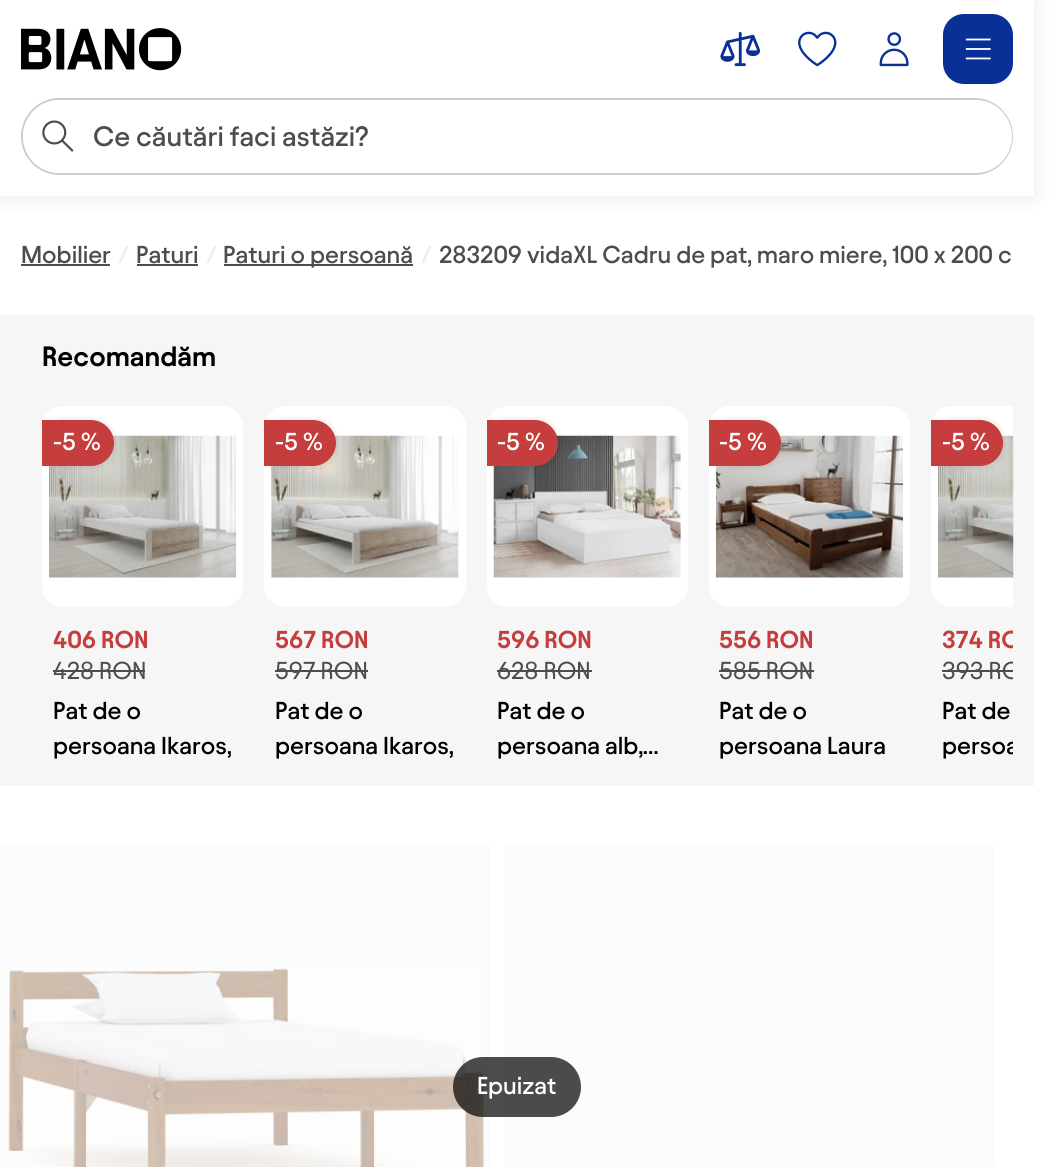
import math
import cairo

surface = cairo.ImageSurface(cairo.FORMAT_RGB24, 1059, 1167)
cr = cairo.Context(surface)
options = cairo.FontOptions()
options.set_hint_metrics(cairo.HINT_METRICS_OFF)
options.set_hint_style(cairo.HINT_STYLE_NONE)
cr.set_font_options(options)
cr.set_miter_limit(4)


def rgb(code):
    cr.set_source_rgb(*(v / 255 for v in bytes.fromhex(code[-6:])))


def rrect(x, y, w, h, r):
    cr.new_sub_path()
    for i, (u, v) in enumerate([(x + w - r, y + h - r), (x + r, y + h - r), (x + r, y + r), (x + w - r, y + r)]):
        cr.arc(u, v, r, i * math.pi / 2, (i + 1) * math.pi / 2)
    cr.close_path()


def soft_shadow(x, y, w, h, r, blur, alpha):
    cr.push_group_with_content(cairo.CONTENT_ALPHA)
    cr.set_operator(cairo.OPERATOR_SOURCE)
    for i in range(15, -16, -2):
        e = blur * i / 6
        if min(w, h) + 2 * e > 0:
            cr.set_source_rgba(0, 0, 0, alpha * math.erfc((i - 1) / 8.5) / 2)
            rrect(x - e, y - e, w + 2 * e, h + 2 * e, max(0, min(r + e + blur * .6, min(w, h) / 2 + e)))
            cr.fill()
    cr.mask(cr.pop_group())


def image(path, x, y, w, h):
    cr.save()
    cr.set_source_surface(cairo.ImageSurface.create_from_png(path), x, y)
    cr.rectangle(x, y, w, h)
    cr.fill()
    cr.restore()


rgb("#ffffff")
cr.paint()
cr.save()
cr.set_fill_rule(cairo.FILL_RULE_EVEN_ODD)
cr.new_path()
cr.move_to(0, 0)
cr.line_to(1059, 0)
cr.line_to(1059, 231)
cr.line_to(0, 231)
cr.close_path()
cr.move_to(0, 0)
cr.line_to(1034, 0)
cr.line_to(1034, 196)
cr.line_to(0, 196)
cr.close_path()
cr.clip()
rgb("#000000")
soft_shadow(0, 2, 1034, 196, 0, 10.5, 0.08)
cr.restore()
image("img/1.png", 21, 28, 161, 43)
image("img/2.png", 720, 32, 41, 35)
image("img/3.png", 798, 31, 39, 36)
image("img/4.png", 879, 32, 30, 35)
rgb("#083096")
rrect(943, 14, 70, 70, 21)
cr.fill()
image("img/5.png", 965, 38, 26, 22)
rrect(22, 99, 990, 75, 37.5)
rgb("#cccccc")
cr.stroke()
rgb("#ffffff")
rrect(23, 100, 989, 73, 36.5)
cr.fill()
image("img/6.png", 42, 120, 32, 32)
for x, y, w, h, color in [
    (21, 264, 89, 2, "#4d4d4d"),
    (137, 264, 61, 2, "#4d4d4d"),
    (224, 264, 189, 2, "#4d4d4d"),
    (0, 315, 1034, 471, "#f6f6f6"),
]:
    rgb(color)
    cr.rectangle(x, y, w, h)
    cr.fill()
rgb("#ffffff")
rrect(42, 406, 201, 201, 21)
cr.fill()
image("img/7.png", 49, 435, 188, 143)
rgb("#000000")
soft_shadow(44, 424, 72, 45, 22.5, 1, 0.04)
soft_shadow(44, 417, 72, 45, 22.5, 1, 0.04)
rgb("#c53d3d")
cr.new_path()
cr.move_to(42, 420)
cr.line_to(91, 420)
cr.curve_to(103.5, 420, 114, 430.5, 114, 443)
cr.curve_to(114, 455.5, 103.5, 466, 91, 466)
cr.line_to(42, 466)
cr.close_path()
cr.fill()
rgb("#4d4d4d")
cr.rectangle(53, 670, 92, 2)
cr.fill()
rgb("#ffffff")
rrect(264, 406, 202, 201, 21)
cr.fill()
image("img/8.png", 271, 435, 188, 143)
rgb("#000000")
soft_shadow(266, 424, 72, 45, 22.5, 1, 0.04)
soft_shadow(266, 417, 72, 45, 22.5, 1, 0.04)
rgb("#c53d3d")
cr.new_path()
cr.move_to(264, 420)
cr.line_to(313, 420)
cr.curve_to(325.5, 420, 336, 430.5, 336, 443)
cr.curve_to(336, 455.5, 325.5, 466, 313, 466)
cr.line_to(264, 466)
cr.close_path()
cr.fill()
rgb("#4d4d4d")
cr.rectangle(275, 670, 93, 2)
cr.fill()
rgb("#ffffff")
rrect(487, 406, 201, 201, 21)
cr.fill()
image("img/9.png", 493, 435, 188, 143)
rgb("#000000")
soft_shadow(488, 424, 72, 45, 22.5, 1, 0.04)
soft_shadow(488, 417, 72, 45, 22.5, 1, 0.04)
rgb("#c53d3d")
cr.new_path()
cr.move_to(487, 420)
cr.line_to(535, 420)
cr.curve_to(547.5, 420, 558, 430.5, 558, 443)
cr.curve_to(558, 455.5, 547.5, 466, 535, 466)
cr.line_to(487, 466)
cr.close_path()
cr.fill()
rgb("#4d4d4d")
cr.rectangle(497, 670, 95, 2)
cr.fill()
rgb("#ffffff")
rrect(709, 406, 201, 201, 21)
cr.fill()
image("img/10.png", 715, 435, 188, 143)
rgb("#000000")
soft_shadow(711, 424, 71, 45, 22.5, 1, 0.04)
soft_shadow(711, 417, 71, 45, 22.5, 1, 0.04)
rgb("#c53d3d")
cr.new_path()
cr.move_to(709, 420)
cr.line_to(758, 420)
cr.curve_to(770.5, 420, 781, 430.5, 781, 443)
cr.curve_to(781, 455.5, 770.5, 466, 758, 466)
cr.line_to(709, 466)
cr.close_path()
cr.fill()
rgb("#4d4d4d")
cr.rectangle(719, 670, 95, 2)
cr.fill()
rgb("#ffffff")
cr.new_path()
cr.move_to(952, 406)
cr.line_to(1013, 406)
cr.line_to(1013, 607)
cr.line_to(952, 607)
cr.curve_to(940.5, 607, 931, 597.5, 931, 586)
cr.line_to(931, 427)
cr.curve_to(931, 415.5, 940.5, 406, 952, 406)
cr.close_path()
cr.fill()
image("img/11.png", 938, 435, 76, 143)
rgb("#000000")
soft_shadow(933, 424, 72, 45, 22.5, 1, 0.04)
soft_shadow(933, 417, 72, 45, 22.5, 1, 0.04)
rgb("#c53d3d")
cr.new_path()
cr.move_to(931, 420)
cr.line_to(980, 420)
cr.curve_to(992.5, 420, 1003, 430.5, 1003, 443)
cr.curve_to(1003, 455.5, 992.5, 466, 980, 466)
cr.line_to(931, 466)
cr.close_path()
cr.fill()
rgb("#4d4d4d")
cr.rectangle(942, 670, 71, 2)
cr.fill()
rgb("#fcfcfc")
cr.rectangle(0, 842, 490, 325)
cr.fill()
image("img/12.png", 8, 968, 477, 199)
cr.rectangle(504, 842, 490, 325)
cr.fill()
cr.set_source_rgba(0, 0, 0, 0.7)
rrect(453, 1057, 128, 60, 30)
cr.fill()
cr.select_font_face("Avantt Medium")
cr.set_font_size(28)
rgb("#4d4d4d")
cr.move_to(93, 146)
cr.show_text("Ce căutări faci astăzi?")
cr.set_font_size(24.5)
cr.move_to(21, 263)
cr.show_text("Mobilier")
rgb("#ededed")
cr.move_to(118, 263)
cr.show_text("/")
rgb("#4d4d4d")
cr.move_to(136, 263)
cr.show_text("Paturi")
rgb("#ededed")
cr.move_to(206, 263)
cr.show_text("/")
rgb("#4d4d4d")
cr.move_to(223, 263)
cr.show_text("Paturi o persoană")
rgb("#ededed")
cr.move_to(421, 263)
cr.show_text("/")
rgb("#4d4d4d")
cr.move_to(439, 263)
cr.show_text("283209 vidaXL Cadru de pat, maro miere, 100 x 200 c")
cr.select_font_face("Avantt SemiBold")
cr.set_font_size(28)
rgb("#000000")
cr.move_to(42, 366)
cr.show_text("Recomandăm")
cr.select_font_face("Avantt Medium")
cr.set_font_size(24.5)
rgb("#ffffff")
cr.move_to(53, 450)
cr.show_text("-5 %")
cr.select_font_face("Avantt SemiBold")
rgb("#c53d3d")
cr.move_to(53, 648)
cr.show_text("406 RON")
cr.select_font_face("Avantt")
rgb("#4d4d4d")
cr.move_to(53, 679)
cr.show_text("428 RON")
cr.select_font_face("Avantt Medium")
rgb("#000000")
cr.move_to(53, 719)
cr.show_text("Pat de o")
cr.move_to(53, 754)
cr.show_text("persoana Ikaros,")
rgb("#ffffff")
cr.move_to(275, 450)
cr.show_text("-5 %")
cr.select_font_face("Avantt SemiBold")
rgb("#c53d3d")
cr.move_to(275, 648)
cr.show_text("567 RON")
cr.select_font_face("Avantt")
rgb("#4d4d4d")
cr.move_to(275, 679)
cr.show_text("597 RON")
cr.select_font_face("Avantt Medium")
rgb("#000000")
cr.move_to(275, 719)
cr.show_text("Pat de o")
cr.move_to(275, 754)
cr.show_text("persoana Ikaros,")
rgb("#ffffff")
cr.move_to(497, 450)
cr.show_text("-5 %")
cr.select_font_face("Avantt SemiBold")
rgb("#c53d3d")
cr.move_to(497, 648)
cr.show_text("596 RON")
cr.select_font_face("Avantt")
rgb("#4d4d4d")
cr.move_to(497, 679)
cr.show_text("628 RON")
cr.select_font_face("Avantt Medium")
rgb("#000000")
cr.move_to(497, 719)
cr.show_text("Pat de o")
cr.move_to(497, 754)
cr.show_text("persoana alb,…")
rgb("#ffffff")
cr.move_to(719, 450)
cr.show_text("-5 %")
cr.select_font_face("Avantt SemiBold")
rgb("#c53d3d")
cr.move_to(719, 648)
cr.show_text("556 RON")
cr.select_font_face("Avantt")
rgb("#4d4d4d")
cr.move_to(719, 679)
cr.show_text("585 RON")
cr.select_font_face("Avantt Medium")
rgb("#000000")
cr.move_to(719, 719)
cr.show_text("Pat de o")
cr.move_to(719, 754)
cr.show_text("persoana Laura")
rgb("#ffffff")
cr.move_to(942, 450)
cr.show_text("-5 %")
cr.save()
cr.rectangle(21, 406, 992, 359)
cr.clip()
cr.select_font_face("Avantt SemiBold")
rgb("#c53d3d")
cr.move_to(942, 648)
cr.show_text("374 RO")
cr.select_font_face("Avantt")
rgb("#4d4d4d")
cr.move_to(942, 679)
cr.show_text("393 RO")
cr.restore()
rgb("#000000")
cr.move_to(942, 719)
cr.show_text("Pat de")
cr.save()
cr.rectangle(942, 695, 71, 70)
cr.clip()
cr.move_to(942, 754)
cr.show_text("persoa")
cr.restore()
rgb("#ffffff")
cr.move_to(477, 1094)
cr.show_text("Epuizat")
surface.write_to_png("page.png")
